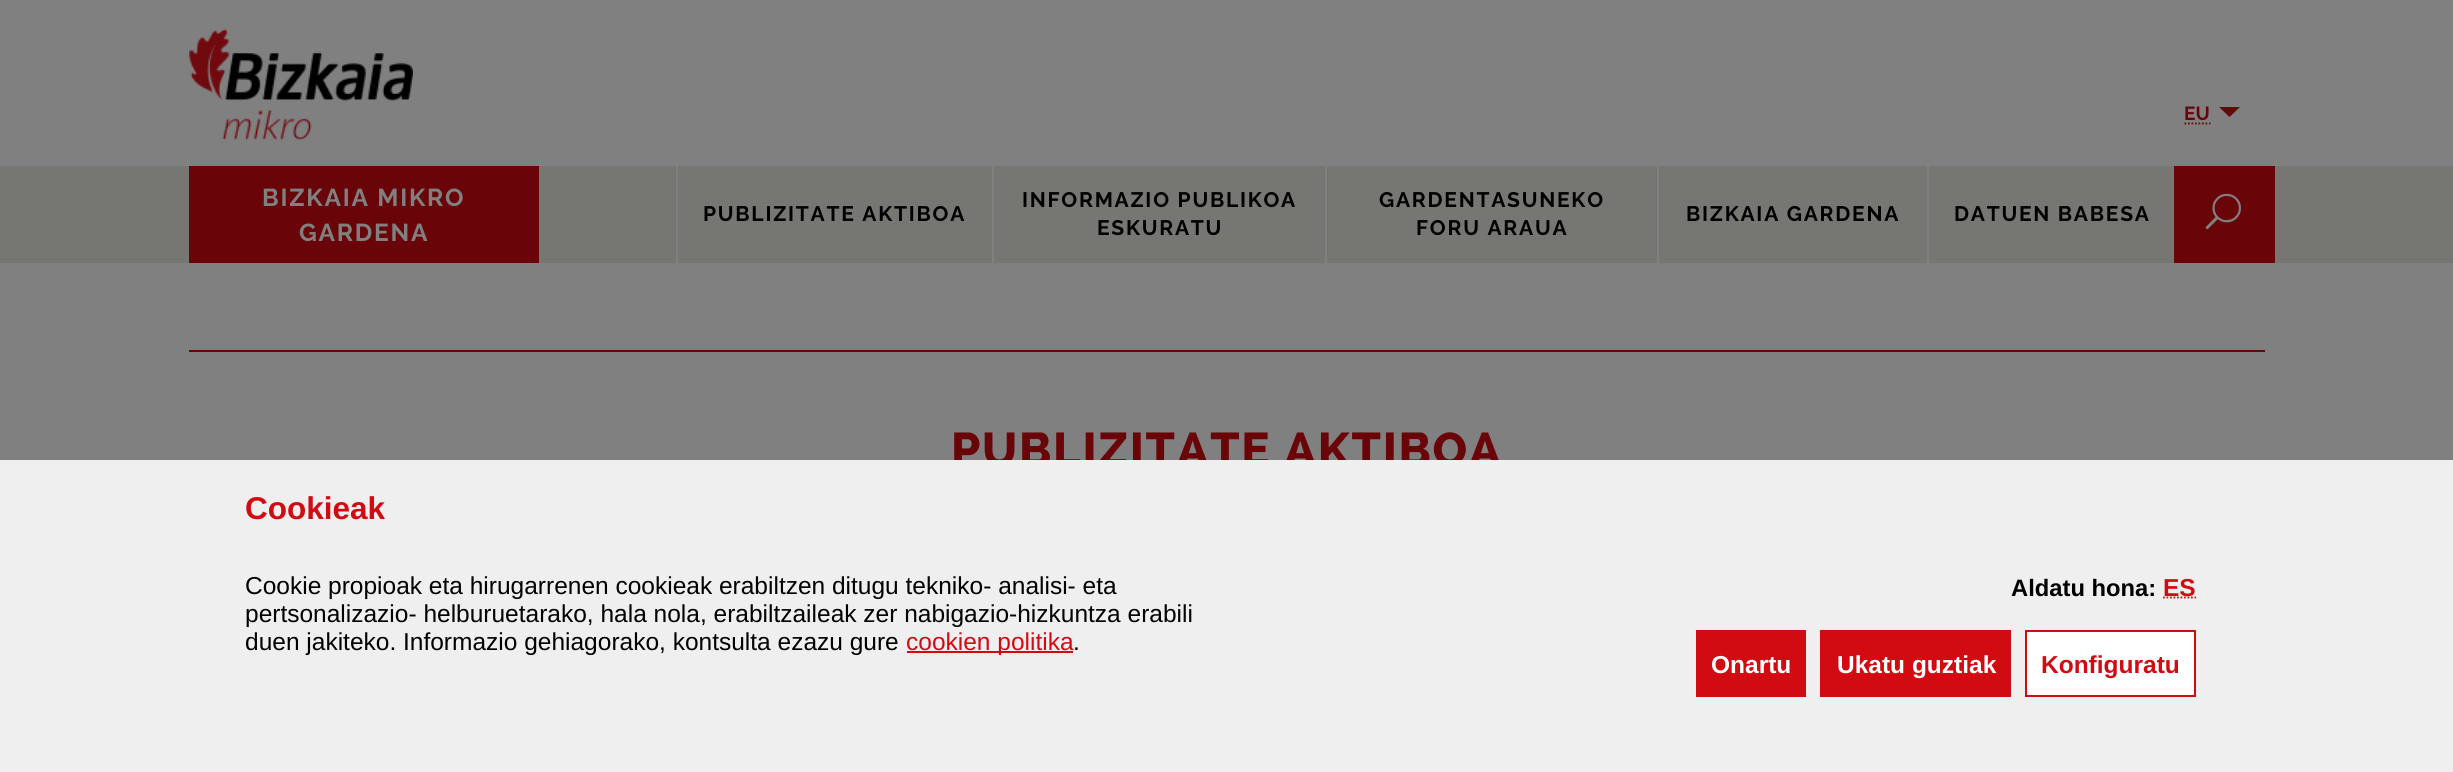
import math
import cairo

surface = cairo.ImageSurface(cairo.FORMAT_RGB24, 2453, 772)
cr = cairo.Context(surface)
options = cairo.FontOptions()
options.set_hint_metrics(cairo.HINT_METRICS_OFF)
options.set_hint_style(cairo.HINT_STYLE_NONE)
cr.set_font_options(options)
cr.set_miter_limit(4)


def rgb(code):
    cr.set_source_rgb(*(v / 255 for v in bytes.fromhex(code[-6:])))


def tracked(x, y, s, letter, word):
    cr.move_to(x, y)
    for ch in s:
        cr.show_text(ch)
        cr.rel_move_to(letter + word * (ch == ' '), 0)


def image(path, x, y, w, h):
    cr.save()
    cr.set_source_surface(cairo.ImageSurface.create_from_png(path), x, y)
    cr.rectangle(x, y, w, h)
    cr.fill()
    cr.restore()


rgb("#808080")
cr.paint()
image("img/1.png", 189, 29, 224, 112)
rgb("#767673")
cr.rectangle(0, 166, 2453, 97)
cr.fill()
rgb("#690509")
cr.rectangle(189, 166, 350, 97)
cr.fill()
cr.new_path()
cr.move_to(2184.5, 123.5)
cr.line_to(2210.5, 123.5)
cr.set_line_width(1.8)
cr.set_dash([1.75, 1.75])
cr.stroke()
cr.new_path()
cr.move_to(2219, 107)
cr.line_to(2240, 107)
cr.line_to(2229.5, 117)
cr.close_path()
cr.fill()
for x, y, w, h, color in [
    (676, 166, 2, 97, "#808080"),
    (992, 166, 2, 97, "#808080"),
    (1325, 166, 2, 97, "#808080"),
    (1657, 166, 2, 97, "#808080"),
    (1927, 166, 2, 97, "#808080"),
    (2174, 166, 101, 97, "#690509"),
]:
    rgb(color)
    cr.rectangle(x, y, w, h)
    cr.fill()
image("img/2.png", 2205, 193, 36, 37)
cr.rectangle(189, 350, 2076, 2)
cr.fill()
cr.select_font_face("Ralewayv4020", cairo.FONT_SLANT_NORMAL, cairo.FONT_WEIGHT_BOLD)
cr.set_font_size(24.5)
rgb("#808080")
tracked(262, 206, "BIZKAIA MIKRO", 1.75, 0)
tracked(299, 241, "GARDENA", 1.75, 0)
cr.set_font_size(19)
rgb("#690509")
cr.move_to(2184, 120)
cr.show_text("EU")
cr.set_font_size(21)
rgb("#000000")
for x, y, s in [
    (703, 221, "PUBLIZITATE AKTIBOA"),
    (1022, 207, "INFORMAZIO PUBLIKOA"),
    (1097, 235, "ESKURATU"),
    (1379, 207, "GARDENTASUNEKO"),
    (1416, 235, "FORU ARAUA"),
    (1686, 221, "BIZKAIA GARDENA"),
    (1954, 221, "DATUEN BABESA"),
]:
    tracked(x, y, s, 1.75, 0)
cr.select_font_face("Raleway ExtraBold")
cr.set_font_size(47.25)
rgb("#690509")
tracked(951, 466, "PUBLIZITATE AKTIBOA", 1.75, 0)
rgb("#efefef")
cr.rectangle(0, 460, 2453, 312)
cr.fill()
cr.select_font_face("Liberation Sans", cairo.FONT_SLANT_NORMAL, cairo.FONT_WEIGHT_BOLD)
cr.set_font_size(31.5)
rgb("#d20a11")
cr.move_to(245, 519)
cr.show_text("Cookieak")
cr.select_font_face("Liberation Sans")
cr.set_font_size(24.5)
rgb("#000000")
for x, y, s in [
    (245, 594, "Cookie propioak eta hirugarrenen cookieak erabiltzen ditugu tekniko- analisi- eta"),
    (245, 622, "pertsonalizazio- helburuetarako, hala nola, erabiltzaileak zer nabigazio-hizkuntza erabili"),
    (245, 650, "duen jakiteko. Informazio gehiagorako, kontsulta ezazu gure"),
]:
    cr.move_to(x, y)
    cr.show_text(s)
rgb("#d20a11")
cr.rectangle(907, 651, 166, 2)
cr.fill()
cr.move_to(906, 650)
cr.show_text("cookien politika")
rgb("#000000")
cr.move_to(1073, 650)
cr.show_text(".")
cr.select_font_face("Liberation Sans", cairo.FONT_SLANT_NORMAL, cairo.FONT_WEIGHT_BOLD)
cr.set_font_size(23.75)
cr.move_to(2011, 596)
cr.show_text("Aldatu hona:")
cr.new_path()
cr.move_to(2163, 597.5)
cr.line_to(2196, 597.5)
rgb("#d20a11")
cr.stroke()
cr.set_font_size(24.5)
cr.move_to(2163, 596)
cr.show_text("ES")
cr.rectangle(1696, 630, 110, 67)
cr.fill()
rgb("#ffffff")
cr.move_to(1711, 673)
cr.show_text("Onartu")
rgb("#d20a11")
cr.rectangle(1820, 630, 191, 67)
cr.fill()
rgb("#ffffff")
cr.move_to(1837, 673)
cr.show_text("Ukatu guztiak")
cr.rectangle(2026, 631, 169, 65)
cr.fill_preserve()
rgb("#d20a11")
cr.set_line_width(2)
cr.set_dash([])
cr.stroke()
cr.move_to(2041, 673)
cr.show_text("Konfiguratu")
surface.write_to_png("page.png")
